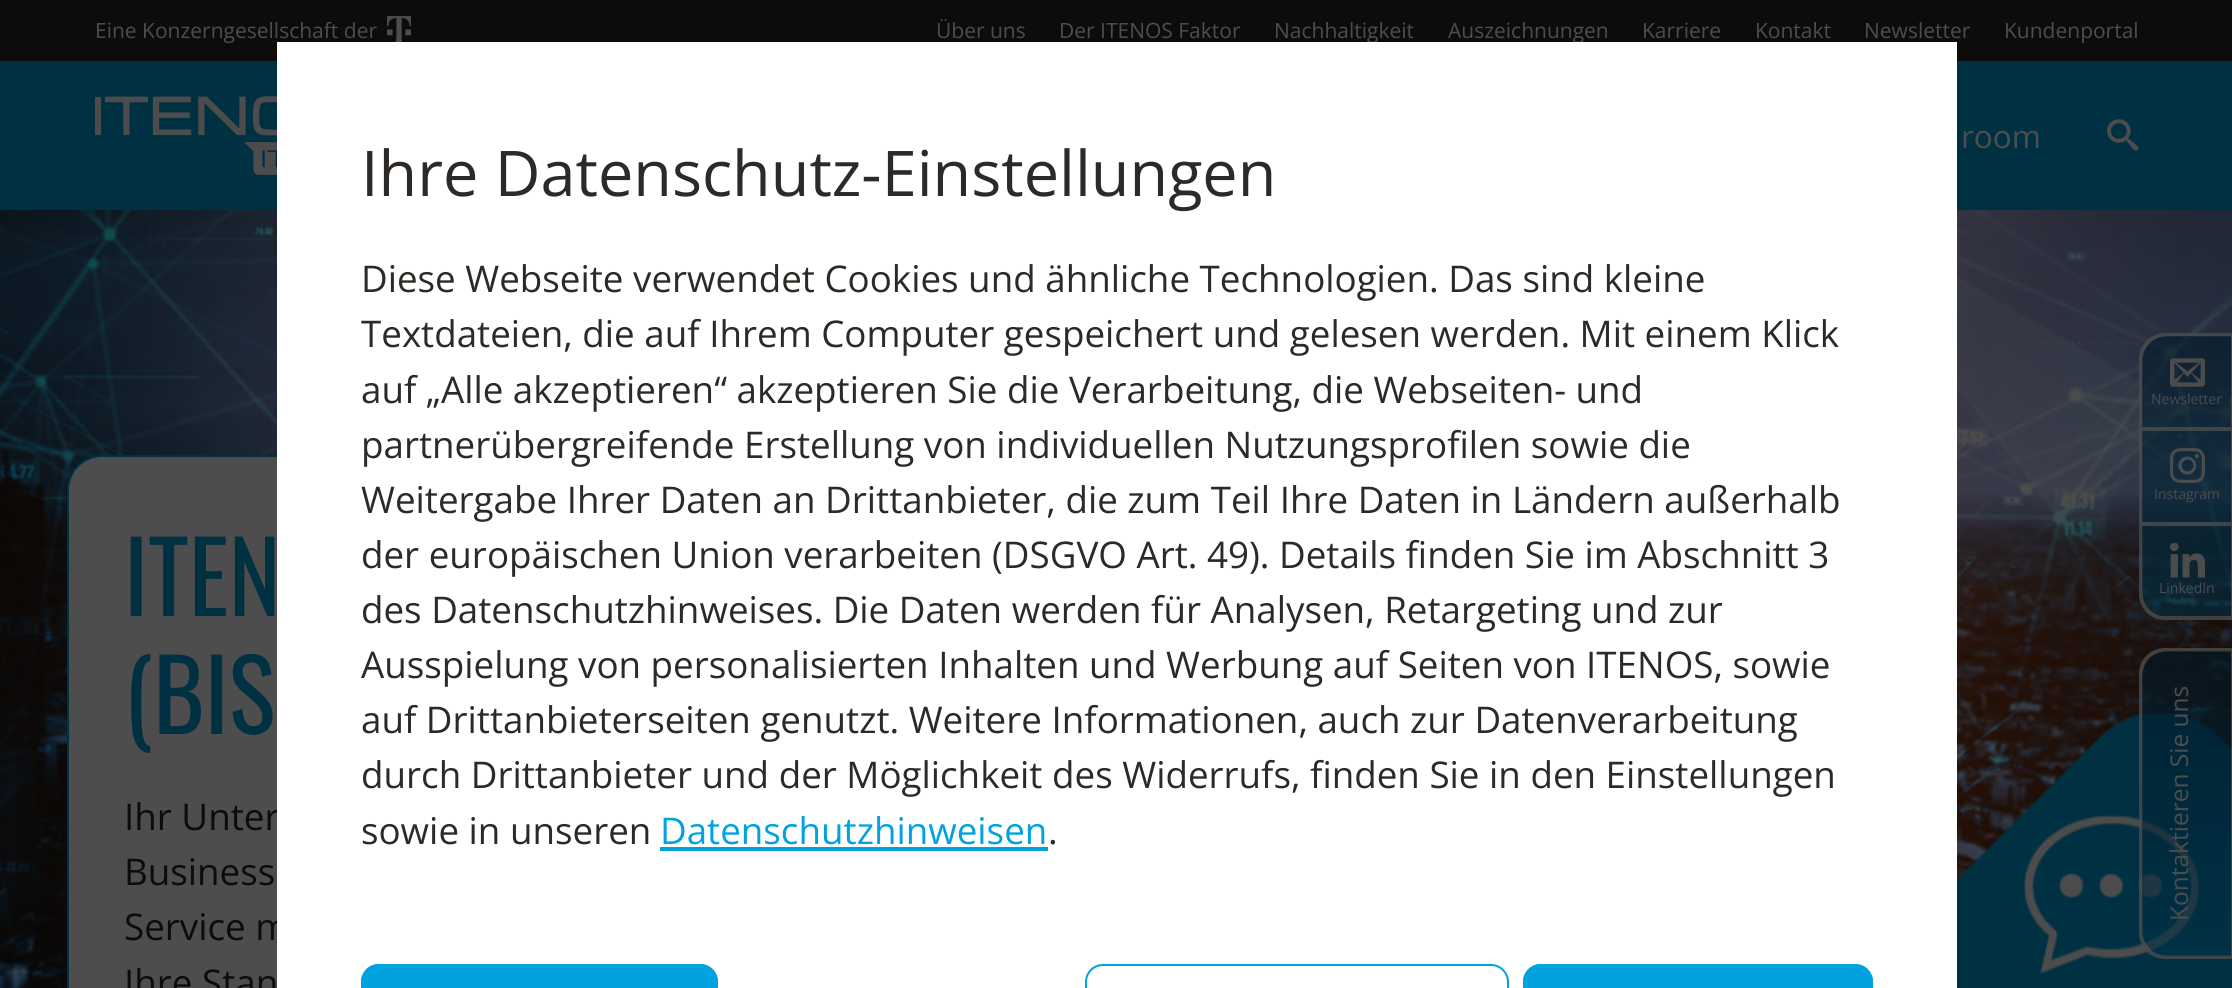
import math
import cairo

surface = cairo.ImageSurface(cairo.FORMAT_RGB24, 2232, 988)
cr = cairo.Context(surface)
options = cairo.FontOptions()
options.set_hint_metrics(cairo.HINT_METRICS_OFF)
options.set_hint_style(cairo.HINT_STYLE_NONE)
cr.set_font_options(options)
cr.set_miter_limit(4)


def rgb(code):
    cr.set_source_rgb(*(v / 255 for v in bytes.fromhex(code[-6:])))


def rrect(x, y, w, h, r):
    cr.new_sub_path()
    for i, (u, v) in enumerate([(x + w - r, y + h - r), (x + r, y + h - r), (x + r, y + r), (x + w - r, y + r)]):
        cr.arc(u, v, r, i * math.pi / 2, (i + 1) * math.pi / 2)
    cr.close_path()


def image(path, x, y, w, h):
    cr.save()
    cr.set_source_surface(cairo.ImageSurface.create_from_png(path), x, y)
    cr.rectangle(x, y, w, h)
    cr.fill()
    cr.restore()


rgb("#ffffff")
cr.paint()
rgb("#0e0c0b")
cr.rectangle(0, 0, 2232, 61)
cr.fill()
image("img/1.png", 387, 16, 24, 26)
rgb("#003143")
cr.rectangle(0, 61, 2232, 149)
cr.fill()
image("img/2.png", 95, 96, 182, 79)
image("img/3.png", 2107, 119, 32, 32)
image("img/4.png", 0, 210, 2232, 778)
rgb("#4d4d4d")
rrect(68, 456, 1398, 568, 34)
cr.fill_preserve()
rgb("#003143")
cr.stroke()
cr.new_path()
cr.move_to(2165, 335)
cr.line_to(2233, 335)
cr.line_to(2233, 618)
cr.line_to(2165, 618)
cr.curve_to(2151.5, 618, 2141, 607.5, 2141, 594)
cr.line_to(2141, 359)
cr.curve_to(2141, 345.5, 2151.5, 335, 2165, 335)
cr.close_path()
cr.set_source_rgba(0.302, 0.302, 0.302, 0.8)
cr.set_line_width(4)
cr.stroke()
gradient = cairo.LinearGradient(2187, 616, 2187, 336)
gradient.add_color_stop_rgba(0, 0, 0.188, 0.267, 0.6)
gradient.add_color_stop_rgba(1, 0, 0.09, 0.153, 0.6)
cr.set_source(gradient)
cr.new_path()
cr.move_to(2168, 336)
cr.line_to(2231, 336)
cr.line_to(2231, 616)
cr.line_to(2168, 616)
cr.curve_to(2153.5, 616, 2142, 604.5, 2142, 590)
cr.line_to(2142, 362)
cr.curve_to(2142, 347.5, 2153.5, 336, 2168, 336)
cr.close_path()
cr.fill()
cr.set_source_rgba(0.302, 0.302, 0.302, 0.8)
cr.rectangle(2142, 427, 89, 4)
cr.fill()
image("img/5.png", 2170, 358, 35, 29)
cr.rectangle(2142, 522, 89, 4)
cr.fill()
image("img/6.png", 2170, 448, 35, 35)
image("img/7.png", 2170, 543, 35, 35)
image("img/8.png", 1957, 711, 275, 277)
cr.new_path()
cr.move_to(2165, 650)
cr.line_to(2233, 650)
cr.line_to(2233, 957)
cr.line_to(2165, 957)
cr.curve_to(2151.5, 957, 2141, 946.5, 2141, 933)
cr.line_to(2141, 674)
cr.curve_to(2141, 660.5, 2151.5, 650, 2165, 650)
cr.close_path()
cr.stroke()
gradient = cairo.LinearGradient(2187, 956, 2187, 651)
gradient.add_color_stop_rgba(0, 0, 0.188, 0.267, 0.6)
gradient.add_color_stop_rgba(1, 0, 0.09, 0.153, 0.6)
cr.set_source(gradient)
cr.new_path()
cr.move_to(2168, 651)
cr.line_to(2231, 651)
cr.line_to(2231, 956)
cr.line_to(2168, 956)
cr.curve_to(2153.5, 956, 2142, 944.5, 2142, 930)
cr.line_to(2142, 677)
cr.curve_to(2142, 662.5, 2153.5, 651, 2168, 651)
cr.close_path()
cr.fill()
cr.select_font_face("Open Sans")
cr.set_font_size(21)
rgb("#4d4d4d")
for x, y, s in [
    (95, 38, "Eine Konzerngesellschaft der"),
    (936, 38, "Über uns"),
    (1059, 38, "Der ITENOS Faktor"),
    (1274, 38, "Nachhaltigkeit"),
    (1448, 38, "Auszeichnungen"),
    (1642, 38, "Karriere"),
    (1755, 38, "Kontakt"),
    (1864, 38, "Newsletter"),
    (2004, 38, "Kundenportal"),
]:
    cr.move_to(x, y)
    cr.show_text(s)
cr.set_font_size(31.5)
cr.move_to(1961, 148)
cr.show_text("room")
cr.select_font_face("Oswald")
cr.set_font_size(98)
rgb("#003143")
cr.move_to(124, 616)
cr.show_text("ITEN")
cr.move_to(124, 734)
cr.show_text("(BIS")
cr.select_font_face("Open Sans")
cr.set_font_size(36.75)
rgb("#0e0c0b")
for x, y, s in [
    (124, 830, "Ihr Unter"),
    (124, 885, "Business"),
    (124, 940, "Service m"),
]:
    cr.move_to(x, y)
    cr.show_text(s)
rgb("#ffffff")
cr.rectangle(277, 42, 1680, 946)
cr.fill()
rgb("#00a3e0")
cr.new_path()
cr.move_to(1541, 964)
cr.line_to(1855, 964)
cr.curve_to(1865, 964, 1873, 972, 1873, 982)
cr.line_to(1873, 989)
cr.line_to(1523, 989)
cr.line_to(1523, 982)
cr.curve_to(1523, 972, 1531, 964, 1541, 964)
cr.close_path()
cr.fill()
rrect(1524, 965, 348, 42, 17)
cr.set_line_width(2)
cr.stroke()
rrect(1086, 965, 422, 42, 17)
cr.stroke()
cr.new_path()
cr.move_to(379, 964)
cr.line_to(700, 964)
cr.curve_to(710, 964, 718, 972, 718, 982)
cr.line_to(718, 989)
cr.line_to(361, 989)
cr.line_to(361, 982)
cr.curve_to(361, 972, 369, 964, 379, 964)
cr.close_path()
cr.fill()
rrect(362, 965, 355, 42, 17)
cr.stroke()
rgb("#2d2926")
cr.move_to(1048, 844)
cr.show_text(".")
rgb("#00a3e0")
cr.move_to(660, 844)
cr.show_text("Datenschutzhinweisen")
cr.rectangle(660, 847, 388, 4)
cr.fill()
rgb("#2d2926")
for x, y, s in [
    (361, 844, "sowie in unseren"),
    (361, 788, "durch Drittanbieter und der Möglichkeit des Widerrufs, finden Sie in den Einstellungen"),
    (361, 733, "auf Drittanbieterseiten genutzt. Weitere Informationen, auch zur Datenverarbeitung"),
    (361, 678, "Ausspielung von personalisierten Inhalten und Werbung auf Seiten von ITENOS, sowie"),
    (361, 623, "des Datenschutzhinweises. Die Daten werden für Analysen, Retargeting und zur"),
    (361, 568, "der europäischen Union verarbeiten (DSGVO Art. 49). Details finden Sie im Abschnitt 3"),
    (361, 513, "Weitergabe Ihrer Daten an Drittanbieter, die zum Teil Ihre Daten in Ländern außerhalb"),
    (361, 458, "partnerübergreifende Erstellung von individuellen Nutzungsprofilen sowie die"),
    (361, 403, "auf „Alle akzeptieren“ akzeptieren Sie die Verarbeitung, die Webseiten- und"),
    (361, 347, "Textdateien, die auf Ihrem Computer gespeichert und gelesen werden. Mit einem Klick"),
    (361, 292, "Diese Webseite verwendet Cookies und ähnliche Technologien. Das sind kleine"),
]:
    cr.move_to(x, y)
    cr.show_text(s)
cr.set_font_size(63)
cr.move_to(361, 196)
cr.show_text("Ihre Datenschutz-Einstellungen")
cr.set_font_size(36.75)
rgb("#0e0c0b")
cr.move_to(124, 996)
cr.show_text("Ihre Stan")
cr.set_font_size(14)
rgb("#4d4d4d")
for x, y, s in [
    (2151, 404, "Newsletter"),
    (2154, 499, "Instagram"),
    (2159, 593, "LinkedIn"),
]:
    cr.move_to(x, y)
    cr.show_text(s)
cr.set_font_size(24.5)
cr.save()
cr.translate(2188, 921)
cr.rotate(-90 * math.pi / 180)
cr.move_to(0, 0)
cr.show_text("Kontaktieren Sie uns")
cr.restore()
surface.write_to_png("page.png")
